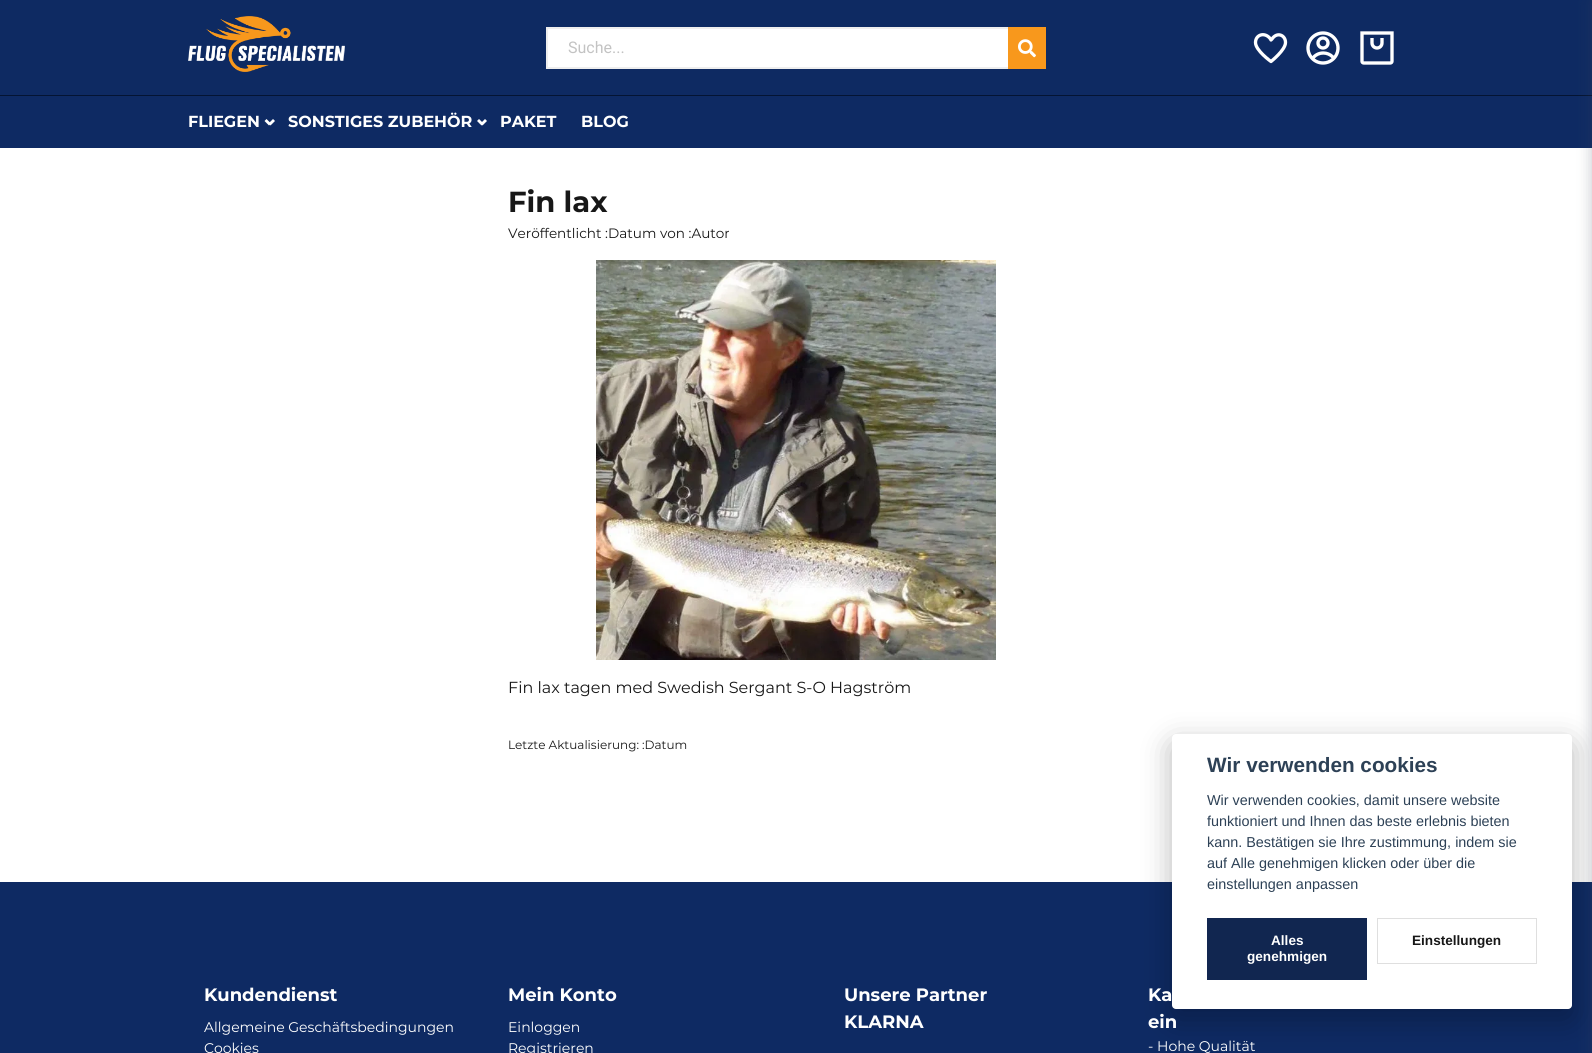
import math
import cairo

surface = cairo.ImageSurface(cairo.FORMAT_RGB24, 1592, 1053)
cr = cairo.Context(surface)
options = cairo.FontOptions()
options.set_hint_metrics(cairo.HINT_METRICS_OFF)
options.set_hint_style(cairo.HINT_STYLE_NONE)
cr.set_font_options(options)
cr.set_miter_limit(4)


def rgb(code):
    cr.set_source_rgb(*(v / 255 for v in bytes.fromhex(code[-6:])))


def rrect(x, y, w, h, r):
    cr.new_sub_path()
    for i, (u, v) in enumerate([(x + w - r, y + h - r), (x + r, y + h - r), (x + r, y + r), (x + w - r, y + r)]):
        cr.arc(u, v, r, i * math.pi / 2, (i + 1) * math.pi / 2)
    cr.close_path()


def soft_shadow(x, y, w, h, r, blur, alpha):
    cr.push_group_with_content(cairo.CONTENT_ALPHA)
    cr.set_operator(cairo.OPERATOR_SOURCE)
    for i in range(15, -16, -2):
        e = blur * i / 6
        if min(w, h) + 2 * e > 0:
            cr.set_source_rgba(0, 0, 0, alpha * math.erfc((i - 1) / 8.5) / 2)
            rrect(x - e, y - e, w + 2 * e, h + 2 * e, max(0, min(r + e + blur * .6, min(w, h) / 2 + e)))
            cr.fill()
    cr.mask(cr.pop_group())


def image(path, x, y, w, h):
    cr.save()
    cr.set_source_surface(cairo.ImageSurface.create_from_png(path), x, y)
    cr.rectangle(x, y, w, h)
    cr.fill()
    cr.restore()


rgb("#ffffff")
cr.paint()
rgb("#0e2a62")
cr.rectangle(0, 0, 1592, 95)
cr.fill()
image("img/1.png", 188, 16, 157, 56)
rgb("#ffffff")
cr.rectangle(548, 29, 460, 38)
cr.fill()
cr.rectangle(547, 28, 498, 40)
rgb("#eeeeee")
cr.stroke()
rgb("#f8981c")
cr.rectangle(1008, 27, 38, 42)
cr.fill()
image("img/2.png", 1018, 39, 18, 19)
cr.new_path()
cr.move_to(1270.5, 39)
cr.curve_to(1265, 31.5, 1255.5, 34.5, 1255.5, 42.5)
cr.curve_to(1255.5, 50.5, 1271, 61.5, 1271, 61.5)
cr.curve_to(1271, 61.5, 1285.5, 50, 1285.5, 42.5)
cr.curve_to(1285.5, 35, 1277, 31.5, 1272, 39)
cr.line_to(1271, 40)
cr.close_path()
rgb("#ffffff")
cr.set_line_width(3.3)
cr.set_line_cap(cairo.LINE_CAP_ROUND)
cr.set_line_join(cairo.LINE_JOIN_ROUND)
cr.stroke()
image("img/3.png", 1306, 31, 34, 34)
image("img/4.png", 1360, 31, 34, 34)
rgb("#0e2a63")
cr.rectangle(0, 96, 1592, 52)
cr.fill()
rgb("#041433")
cr.rectangle(0, 95, 1592, 1)
cr.fill()
rgb("#ffffff")
cr.new_path()
cr.move_to(268.5, 123.5)
cr.line_to(273, 119)
cr.line_to(275, 121)
cr.line_to(270.5, 125.5)
cr.close_path()
cr.fill()
cr.new_path()
cr.move_to(264.5, 121)
cr.line_to(266.5, 119)
cr.line_to(271, 123.5)
cr.line_to(269, 125.5)
cr.close_path()
cr.fill()
cr.new_path()
cr.move_to(480.5, 123.5)
cr.line_to(485, 119)
cr.line_to(487, 121)
cr.line_to(482.5, 125.5)
cr.close_path()
cr.fill()
cr.new_path()
cr.move_to(477, 121)
cr.line_to(479, 119)
cr.line_to(483.5, 123.5)
cr.line_to(481.5, 125.5)
cr.close_path()
cr.fill()
rgb("#0e2a63")
cr.rectangle(0, 882, 1592, 171)
cr.fill()
rgb("#3c4257")
soft_shadow(1592, 1, 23, 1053, 0, 7.5, 0.3)
image("img/5.png", 596, 260, 400, 400)
rgb("#020203")
soft_shadow(1172, 744, 400, 275, 4, 15, 0.28)
rgb("#ffffff")
rrect(1172, 734, 400, 275, 4)
cr.fill()
rgb("#112650")
cr.rectangle(1207, 918, 160, 62)
cr.fill()
cr.rectangle(1377.5, 918.5, 159, 45)
rgb("#dfdfdf")
cr.set_line_width(1)
cr.set_line_cap(cairo.LINE_CAP_BUTT)
cr.set_line_join(cairo.LINE_JOIN_MITER)
cr.stroke()
cr.select_font_face("Roboto")
cr.set_font_size(16)
rgb("#c3c3c3")
cr.move_to(568, 53)
cr.show_text("Suche...")
cr.select_font_face("Montserrat", cairo.FONT_SLANT_NORMAL, cairo.FONT_WEIGHT_BOLD)
rgb("#ffffff")
for x, y, s in [
    (188, 127, "FLIEGEN"),
    (288, 127, "SONSTIGES ZUBEHÖR"),
    (500, 127, "PAKET"),
    (581, 127, "BLOG"),
]:
    cr.move_to(x, y)
    cr.show_text(s)
cr.set_font_size(29)
rgb("#171717")
cr.move_to(508, 212)
cr.show_text("Fin lax")
cr.select_font_face("Montserrat")
cr.set_font_size(13.6)
cr.move_to(508, 238)
cr.show_text("Veröffentlicht :Datum von :Autor")
cr.set_font_size(16)
cr.move_to(508, 693)
cr.show_text("Fin lax tagen med Swedish Sergant S-O Hagström")
cr.set_font_size(12)
cr.move_to(508, 749)
cr.show_text("Letzte Aktualisierung: :Datum")
cr.select_font_face("Montserrat", cairo.FONT_SLANT_NORMAL, cairo.FONT_WEIGHT_BOLD)
cr.set_font_size(18)
rgb("#ffffff")
cr.move_to(204, 1001)
cr.show_text("Kundendienst")
cr.select_font_face("Montserrat")
cr.set_font_size(14)
cr.move_to(204, 1032)
cr.show_text("Allgemeine Geschäftsbedingungen")
cr.move_to(204, 1053)
cr.show_text("Cookies")
cr.select_font_face("Montserrat", cairo.FONT_SLANT_NORMAL, cairo.FONT_WEIGHT_BOLD)
cr.set_font_size(18)
cr.move_to(508, 1001)
cr.show_text("Mein Konto")
cr.select_font_face("Montserrat")
cr.set_font_size(14)
cr.move_to(508, 1032)
cr.show_text("Einloggen")
cr.move_to(508, 1053)
cr.show_text("Registrieren")
cr.select_font_face("Montserrat", cairo.FONT_SLANT_NORMAL, cairo.FONT_WEIGHT_BOLD)
cr.set_font_size(18)
for x, y, s in [
    (844, 1001, "Unsere Partner"),
    (844, 1028, "KLARNA"),
    (1148, 1001, "Ka"),
    (1148, 1028, "ein"),
]:
    cr.move_to(x, y)
    cr.show_text(s)
cr.select_font_face("Montserrat")
cr.set_font_size(14)
cr.move_to(1148, 1051)
cr.show_text("- Hohe Qualität")
cr.select_font_face("Liberation Sans", cairo.FONT_SLANT_NORMAL, cairo.FONT_WEIGHT_BOLD)
cr.set_font_size(20.75)
rgb("#2d4156")
cr.move_to(1207, 772)
cr.show_text("Wir verwenden cookies")
cr.select_font_face("Liberation Sans")
cr.set_font_size(14.4)
for x, y, s in [
    (1207, 805, "Wir verwenden cookies, damit unsere website"),
    (1207, 826, "funktioniert und Ihnen das beste erlebnis bieten"),
    (1207, 847, "kann. Bestätigen sie Ihre zustimmung, indem sie"),
    (1207, 868, "auf Alle genehmigen klicken oder über die"),
    (1207, 889, "einstellungen anpassen"),
]:
    cr.move_to(x, y)
    cr.show_text(s)
cr.select_font_face("Liberation Sans", cairo.FONT_SLANT_NORMAL, cairo.FONT_WEIGHT_BOLD)
cr.set_font_size(13.6)
rgb("#ffffff")
cr.move_to(1271, 945)
cr.show_text("Alles")
cr.move_to(1247, 961)
cr.show_text("genehmigen")
rgb("#171717")
cr.move_to(1412, 945)
cr.show_text("Einstellungen")
surface.write_to_png("page.png")
